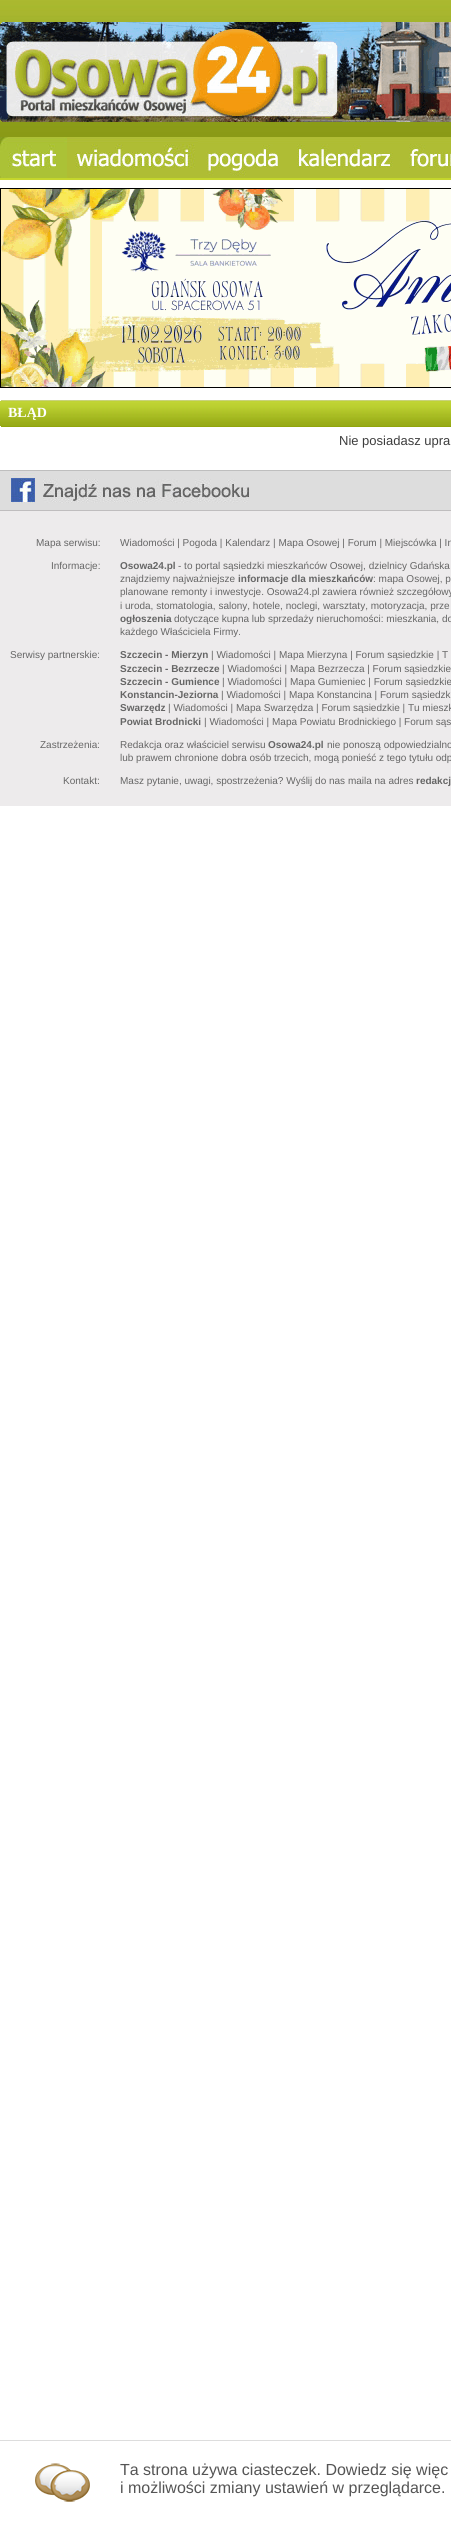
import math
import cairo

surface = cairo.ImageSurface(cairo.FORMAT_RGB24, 451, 2521)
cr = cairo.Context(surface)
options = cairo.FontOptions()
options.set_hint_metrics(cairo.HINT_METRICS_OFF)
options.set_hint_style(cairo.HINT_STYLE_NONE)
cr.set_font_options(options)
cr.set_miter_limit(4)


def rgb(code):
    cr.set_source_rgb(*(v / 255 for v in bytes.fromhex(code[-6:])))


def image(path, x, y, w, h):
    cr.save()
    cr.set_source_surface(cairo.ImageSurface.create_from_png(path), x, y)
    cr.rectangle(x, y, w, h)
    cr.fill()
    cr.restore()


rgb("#ffffff")
cr.paint()
image("img/1.png", 0, 0, 451, 180)
image("img/2.png", 0, 470, 451, 336)
image("img/3.png", 0, 22, 451, 100)
image("img/4.png", 0, 137, 67, 41)
image("img/5.png", 67, 137, 131, 41)
image("img/6.png", 198, 137, 91, 41)
image("img/7.png", 289, 137, 112, 41)
image("img/8.png", 401, 137, 50, 41)
image("img/9.png", 0, 188, 451, 200)
image("img/10.png", 0, 400, 451, 27)
image("img/11.png", 11, 472, 238, 31)
rgb("#dddddd")
cr.rectangle(0, 2440, 451, 1)
cr.fill()
image("img/12.png", 35, 2463, 55, 39)
cr.select_font_face("Liberation Serif", cairo.FONT_SLANT_NORMAL, cairo.FONT_WEIGHT_BOLD)
cr.set_font_size(14)
rgb("#ffffff")
cr.move_to(8, 417)
cr.show_text("BŁĄD")
cr.select_font_face("Liberation Sans")
cr.set_font_size(13)
rgb("#3d3d3d")
cr.move_to(339, 445)
cr.show_text("Nie posiadasz upra")
cr.set_font_size(10)
rgb("#666666")
for x, y, s in [
    (36, 546, "Mapa serwisu:"),
    (120, 546, "Wiadomości | Pogoda | Kalendarz | Mapa Osowej | Forum | Miejscówka | In"),
    (51, 569, "Informacje:"),
]:
    cr.move_to(x, y)
    cr.show_text(s)
cr.select_font_face("Liberation Sans", cairo.FONT_SLANT_NORMAL, cairo.FONT_WEIGHT_BOLD)
cr.move_to(120, 569)
cr.show_text("Osowa24.pl")
cr.select_font_face("Liberation Sans")
cr.move_to(178, 569)
cr.show_text("- to portal sąsiedzki mieszkańców Osowej, dzielnicy Gdańska")
cr.move_to(120, 582)
cr.show_text("znajdziemy najważniejsze")
cr.select_font_face("Liberation Sans", cairo.FONT_SLANT_NORMAL, cairo.FONT_WEIGHT_BOLD)
cr.move_to(238, 582)
cr.show_text("informacje dla mieszkańców")
cr.select_font_face("Liberation Sans")
for x, y, s in [
    (373, 582, ": mapa Osowej, p"),
    (120, 595, "planowane remonty i inwestycje. Osowa24.pl zawiera również szczegółowy"),
    (120, 609, "i uroda, stomatologia, salony, hotele, noclegi, warsztaty, motoryzacja, prze"),
]:
    cr.move_to(x, y)
    cr.show_text(s)
cr.select_font_face("Liberation Sans", cairo.FONT_SLANT_NORMAL, cairo.FONT_WEIGHT_BOLD)
cr.move_to(120, 622)
cr.show_text("ogłoszenia")
cr.select_font_face("Liberation Sans")
for x, y, s in [
    (174, 622, "dotyczące kupna lub sprzedaży nieruchomości: mieszkania, do"),
    (120, 635, "każdego Właściciela Firmy."),
    (10, 658, "Serwisy partnerskie:"),
]:
    cr.move_to(x, y)
    cr.show_text(s)
cr.select_font_face("Liberation Sans", cairo.FONT_SLANT_NORMAL, cairo.FONT_WEIGHT_BOLD)
cr.move_to(120, 658)
cr.show_text("Szczecin - Mierzyn")
cr.select_font_face("Liberation Sans")
cr.move_to(211, 658)
cr.show_text("| Wiadomości | Mapa Mierzyna | Forum sąsiedzkie | T")
cr.select_font_face("Liberation Sans", cairo.FONT_SLANT_NORMAL, cairo.FONT_WEIGHT_BOLD)
cr.move_to(120, 672)
cr.show_text("Szczecin - Bezrzecze")
cr.select_font_face("Liberation Sans")
cr.move_to(222, 672)
cr.show_text("| Wiadomości | Mapa Bezrzecza | Forum sąsiedzkie")
cr.select_font_face("Liberation Sans", cairo.FONT_SLANT_NORMAL, cairo.FONT_WEIGHT_BOLD)
cr.move_to(120, 685)
cr.show_text("Szczecin - Gumience")
cr.select_font_face("Liberation Sans")
cr.move_to(222, 685)
cr.show_text("| Wiadomości | Mapa Gumieniec | Forum sąsiedzkie")
cr.select_font_face("Liberation Sans", cairo.FONT_SLANT_NORMAL, cairo.FONT_WEIGHT_BOLD)
cr.move_to(120, 698)
cr.show_text("Konstancin-Jeziorna")
cr.select_font_face("Liberation Sans")
cr.move_to(221, 698)
cr.show_text("| Wiadomości | Mapa Konstancina | Forum sąsiedzk")
cr.select_font_face("Liberation Sans", cairo.FONT_SLANT_NORMAL, cairo.FONT_WEIGHT_BOLD)
cr.move_to(120, 711)
cr.show_text("Swarzędz")
cr.select_font_face("Liberation Sans")
cr.move_to(168, 711)
cr.show_text("| Wiadomości | Mapa Swarzędza | Forum sąsiedzkie | Tu mieszk")
cr.select_font_face("Liberation Sans", cairo.FONT_SLANT_NORMAL, cairo.FONT_WEIGHT_BOLD)
cr.move_to(120, 725)
cr.show_text("Powiat Brodnicki")
cr.select_font_face("Liberation Sans")
for x, y, s in [
    (204, 725, "| Wiadomości | Mapa Powiatu Brodnickiego | Forum sąs"),
    (40, 748, "Zastrzeżenia:"),
    (120, 748, "Redakcja oraz właściciel serwisu"),
]:
    cr.move_to(x, y)
    cr.show_text(s)
cr.select_font_face("Liberation Sans", cairo.FONT_SLANT_NORMAL, cairo.FONT_WEIGHT_BOLD)
cr.move_to(268, 748)
cr.show_text("Osowa24.pl")
cr.select_font_face("Liberation Sans")
for x, y, s in [
    (327, 748, "nie ponoszą odpowiedzialno"),
    (120, 761, "lub prawem chronione dobra osób trzecich, mogą ponieść z tego tytułu odp"),
    (63, 784, "Kontakt:"),
    (120, 784, "Masz pytanie, uwagi, spostrzeżenia? Wyślij do nas maila na adres"),
]:
    cr.move_to(x, y)
    cr.show_text(s)
cr.select_font_face("Liberation Sans", cairo.FONT_SLANT_NORMAL, cairo.FONT_WEIGHT_BOLD)
cr.move_to(416, 784)
cr.show_text("redakcj")
cr.select_font_face("Liberation Sans")
cr.set_font_size(16)
rgb("#555555")
cr.move_to(120, 2475)
cr.show_text("Ta strona używa ciasteczek. Dowiedz się więc")
cr.move_to(120, 2493)
cr.show_text("i możliwości zmiany ustawień w przeglądarce.")
surface.write_to_png("page.png")
